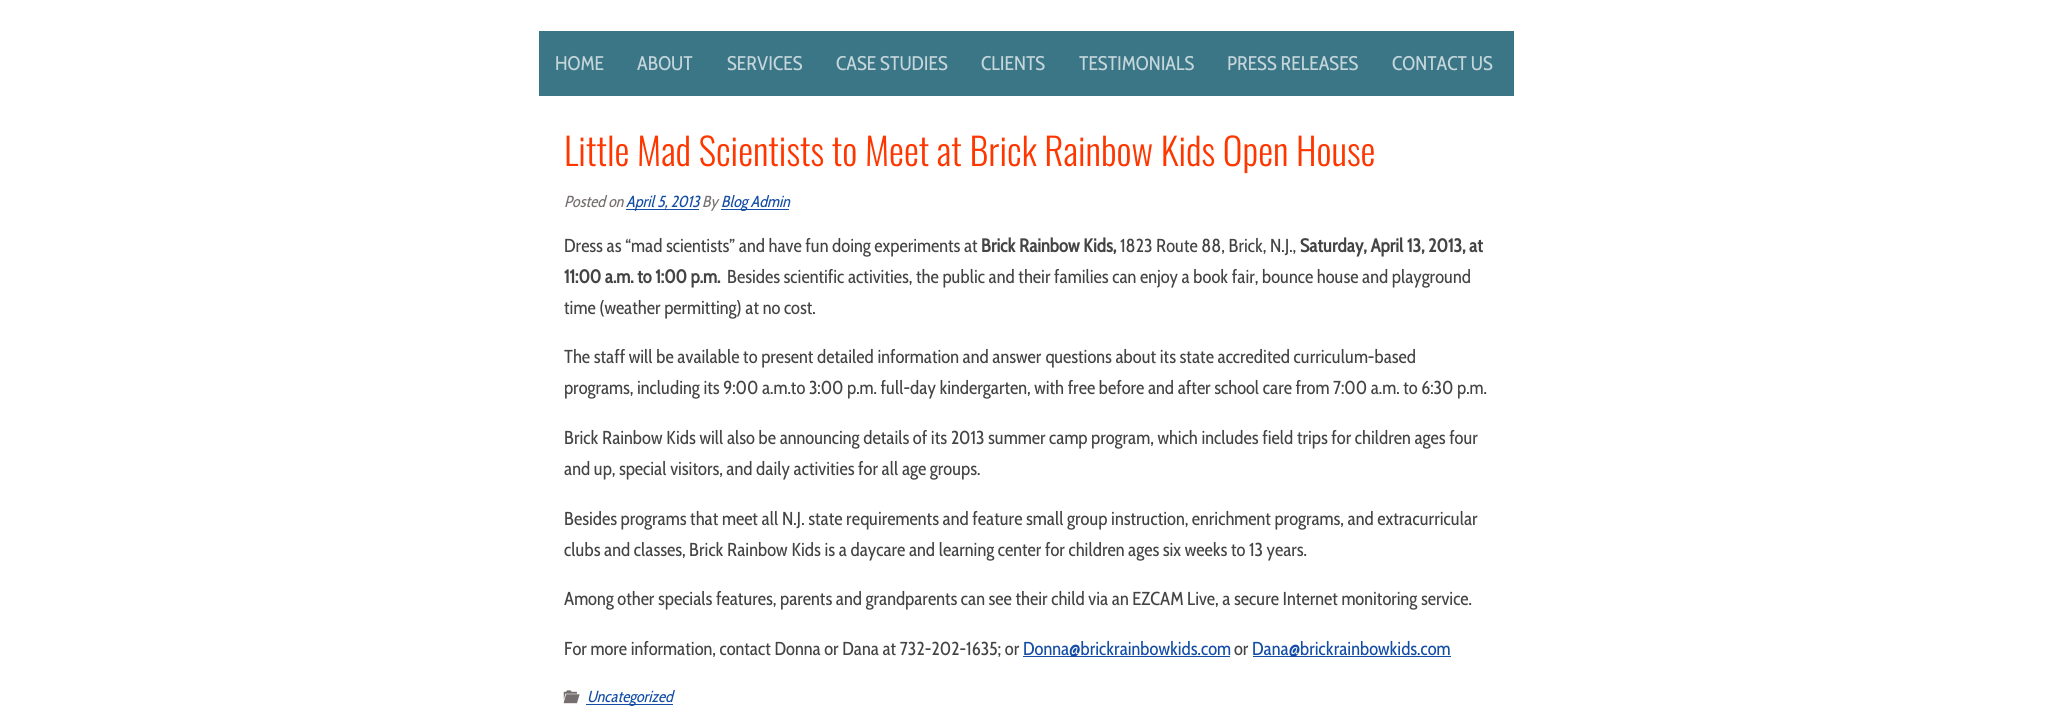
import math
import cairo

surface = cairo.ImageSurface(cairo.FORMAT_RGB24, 2052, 712)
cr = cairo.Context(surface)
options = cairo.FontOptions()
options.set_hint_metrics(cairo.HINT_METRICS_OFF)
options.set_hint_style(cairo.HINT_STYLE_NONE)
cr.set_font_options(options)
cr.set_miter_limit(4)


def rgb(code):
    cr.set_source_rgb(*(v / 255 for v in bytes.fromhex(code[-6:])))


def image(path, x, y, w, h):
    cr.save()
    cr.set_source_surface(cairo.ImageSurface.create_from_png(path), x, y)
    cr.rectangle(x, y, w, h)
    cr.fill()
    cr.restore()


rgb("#ffffff")
cr.paint()
for x, y, w, h, color in [
    (539, 31, 975, 65, "#3b7687"),
    (626, 209, 73, 1, "#134da5"),
    (721, 209, 68, 1, "#134da5"),
    (1023, 656, 207, 1, "#134da5"),
    (1253, 656, 198, 1, "#134da5"),
]:
    rgb(color)
    cr.rectangle(x, y, w, h)
    cr.fill()
image("img/1.png", 563, 690, 17, 14)
cr.rectangle(586, 704, 87, 1)
cr.fill()
cr.select_font_face("Cabin Condensed")
cr.set_font_size(19.75)
rgb("#c5d6db")
for x, y, s in [
    (555, 70, "HOME"),
    (637, 70, "ABOUT"),
    (727, 70, "SERVICES"),
    (836, 70, "CASE STUDIES"),
    (981, 70, "CLIENTS"),
    (1079, 70, "TESTIMONIALS"),
    (1227, 70, "PRESS RELEASES"),
    (1392, 70, "CONTACT US"),
]:
    cr.move_to(x, y)
    cr.show_text(s)
cr.select_font_face("Oswald Light")
cr.set_font_size(37.5)
rgb("#fe3700")
cr.move_to(564, 166)
cr.show_text("Little Mad Scientists to Meet at Brick Rainbow Kids Open House")
cr.select_font_face("Cabin Condensed", cairo.FONT_SLANT_ITALIC)
cr.set_font_size(16)
rgb("#766f6f")
cr.move_to(564, 207)
cr.show_text("Posted on")
rgb("#134da5")
cr.move_to(626, 207)
cr.show_text("April 5, 2013")
rgb("#766f6f")
cr.move_to(702, 207)
cr.show_text("By")
rgb("#134da5")
cr.move_to(721, 207)
cr.show_text("Blog Admin")
cr.select_font_face("Cabin Condensed")
cr.set_font_size(18.75)
rgb("#444444")
cr.move_to(564, 252)
cr.show_text("Dress as “mad scientists” and have fun doing experiments at")
cr.select_font_face("Cabin Condensed", cairo.FONT_SLANT_NORMAL, cairo.FONT_WEIGHT_BOLD)
cr.move_to(981, 252)
cr.show_text("Brick Rainbow Kids,")
cr.select_font_face("Cabin Condensed")
cr.move_to(1120, 252)
cr.show_text("1823 Route 88, Brick, N.J.,")
cr.select_font_face("Cabin Condensed", cairo.FONT_SLANT_NORMAL, cairo.FONT_WEIGHT_BOLD)
cr.move_to(1300, 252)
cr.show_text("Saturday, April 13, 2013, at")
cr.move_to(564, 283)
cr.show_text("11:00 a.m. to 1:00 p.m.")
cr.select_font_face("Cabin Condensed")
for x, y, s in [
    (727, 283, "Besides scientific activities, the public and their families can enjoy a book fair, bounce house and playground"),
    (564, 314, "time (weather permitting) at no cost."),
    (564, 363, "The staff will be available to present detailed information and answer questions about its state accredited curriculum-based"),
    (564, 394, "programs, including its 9:00 a.m.to 3:00 p.m. full-day kindergarten, with free before and after school care from 7:00 a.m. to 6:30 p.m."),
    (564, 444, "Brick Rainbow Kids will also be announcing details of its 2013 summer camp program, which includes field trips for children ages four"),
    (564, 475, "and up, special visitors, and daily activities for all age groups."),
    (564, 525, "Besides programs that meet all N.J. state requirements and feature small group instruction, enrichment programs, and extracurricular"),
    (564, 556, "clubs and classes, Brick Rainbow Kids is a daycare and learning center for children ages six weeks to 13 years."),
    (564, 605, "Among other specials features, parents and grandparents can see their child via an EZCAM Live, a secure Internet monitoring service."),
    (564, 655, "For more information, contact Donna or Dana at 732-202-1635; or"),
]:
    cr.move_to(x, y)
    cr.show_text(s)
rgb("#134da5")
cr.move_to(1023, 655)
cr.show_text("Donna@brickrainbowkids.com")
rgb("#444444")
cr.move_to(1234, 655)
cr.show_text("or")
rgb("#134da5")
cr.move_to(1252, 655)
cr.show_text("Dana@brickrainbowkids.com")
cr.select_font_face("Cabin Condensed", cairo.FONT_SLANT_ITALIC)
cr.set_font_size(16)
cr.move_to(587, 702)
cr.show_text("Uncategorized")
surface.write_to_png("page.png")
